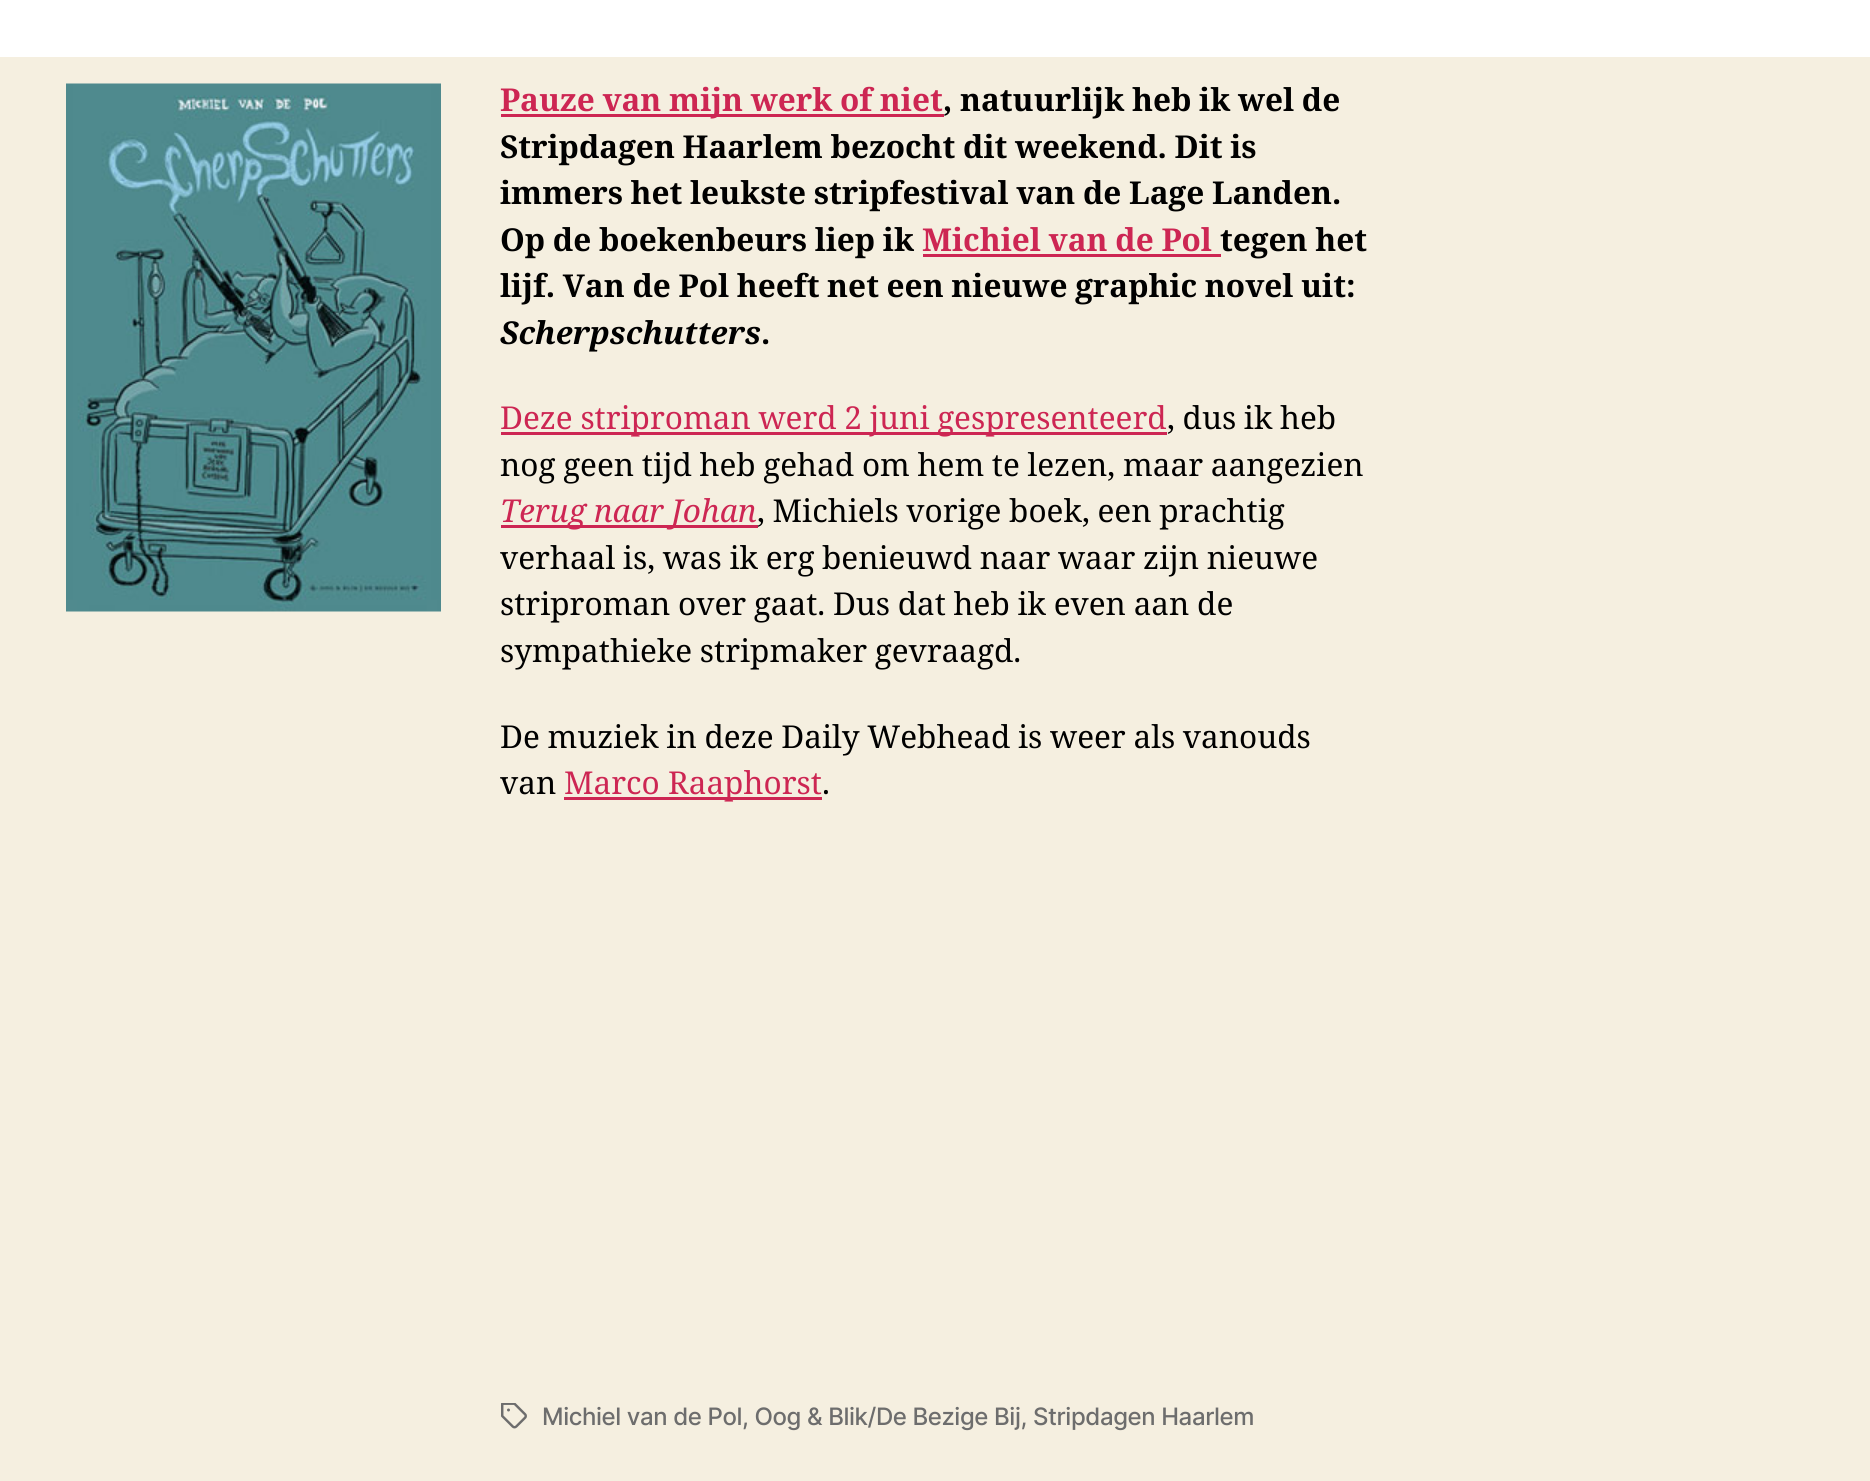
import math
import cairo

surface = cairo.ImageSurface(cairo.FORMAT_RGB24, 1870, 1481)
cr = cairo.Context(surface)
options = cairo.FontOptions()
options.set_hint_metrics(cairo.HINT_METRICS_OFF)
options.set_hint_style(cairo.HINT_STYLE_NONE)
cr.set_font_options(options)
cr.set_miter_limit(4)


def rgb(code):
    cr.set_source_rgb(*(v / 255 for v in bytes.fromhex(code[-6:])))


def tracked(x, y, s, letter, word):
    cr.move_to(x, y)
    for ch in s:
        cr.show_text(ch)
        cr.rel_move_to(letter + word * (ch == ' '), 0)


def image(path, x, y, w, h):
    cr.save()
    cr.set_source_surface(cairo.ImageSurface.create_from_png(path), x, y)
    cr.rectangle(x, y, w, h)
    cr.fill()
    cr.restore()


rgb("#f5efe0")
cr.paint()
rgb("#ffffff")
cr.rectangle(0, 0, 1870, 57)
cr.fill()
image("img/1.png", 66, 83, 375, 529)
for x, y, w, h, color in [
    (501, 114, 443, 3, "#cd2653"),
    (923, 254, 298, 3, "#cd2653"),
    (501, 432, 666, 3, "#cd2653"),
    (501, 525, 257, 3, "#cd2653"),
    (564, 797, 258, 3, "#cd2653"),
]:
    rgb(color)
    cr.rectangle(x, y, w, h)
    cr.fill()
image("img/2.png", 501, 1403, 26, 26)
cr.select_font_face("Noto Serif", cairo.FONT_SLANT_NORMAL, cairo.FONT_WEIGHT_BOLD)
cr.set_font_size(31.5)
tracked(500, 111, "Pauze van mijn werk of niet", 0, -0.5)
rgb("#000000")
for x, y, s in [
    (943, 111, ", natuurlijk heb ik wel de"),
    (500, 158, "Stripdagen Haarlem bezocht dit weekend. Dit is"),
    (500, 204, "immers het leukste stripfestival van de Lage Landen."),
    (500, 251, "Op de boekenbeurs liep ik"),
]:
    tracked(x, y, s, 0, -0.5)
rgb("#cd2653")
tracked(922, 251, "Michiel van de Pol", 0, -0.5)
rgb("#000000")
tracked(1220, 251, "tegen het", 0, -0.5)
tracked(500, 297, "lijf. Van de Pol heeft net een nieuwe graphic novel uit:", 0, -0.5)
cr.select_font_face("Noto Serif", cairo.FONT_SLANT_ITALIC, cairo.FONT_WEIGHT_BOLD)
cr.move_to(500, 344)
cr.show_text("Scherpschutters")
cr.select_font_face("Noto Serif", cairo.FONT_SLANT_NORMAL, cairo.FONT_WEIGHT_BOLD)
cr.move_to(761, 344)
cr.show_text(".")
cr.select_font_face("Noto Serif")
rgb("#cd2653")
tracked(500, 429, "Deze striproman werd 2 juni gespresenteerd", 0, -0.5)
rgb("#000000")
tracked(1167, 429, ", dus ik heb", 0, -0.5)
tracked(500, 476, "nog geen tijd heb gehad om hem te lezen, maar aangezien", 0, -0.5)
cr.select_font_face("Noto Serif", cairo.FONT_SLANT_ITALIC)
rgb("#cd2653")
tracked(500, 522, "Terug naar Johan", 0, -0.5)
cr.select_font_face("Noto Serif")
rgb("#000000")
for x, y, s in [
    (757, 522, ", Michiels vorige boek, een prachtig"),
    (500, 569, "verhaal is, was ik erg benieuwd naar waar zijn nieuwe"),
    (500, 615, "striproman over gaat. Dus dat heb ik even aan de"),
    (500, 662, "sympathieke stripmaker gevraagd."),
    (500, 748, "De muziek in deze Daily Webhead is weer als vanouds"),
]:
    tracked(x, y, s, 0, -0.5)
cr.move_to(500, 794)
cr.show_text("van")
rgb("#cd2653")
cr.move_to(564, 794)
cr.show_text("Marco Raaphorst")
rgb("#000000")
cr.move_to(822, 794)
cr.show_text(".")
cr.select_font_face("Inter Medium")
cr.set_font_size(24)
rgb("#6d6d6d")
tracked(542, 1425, "Michiel van de Pol, Oog & Blik/De Bezige Bij, Stripdagen Haarlem", -0.4, 0)
surface.write_to_png("page.png")
